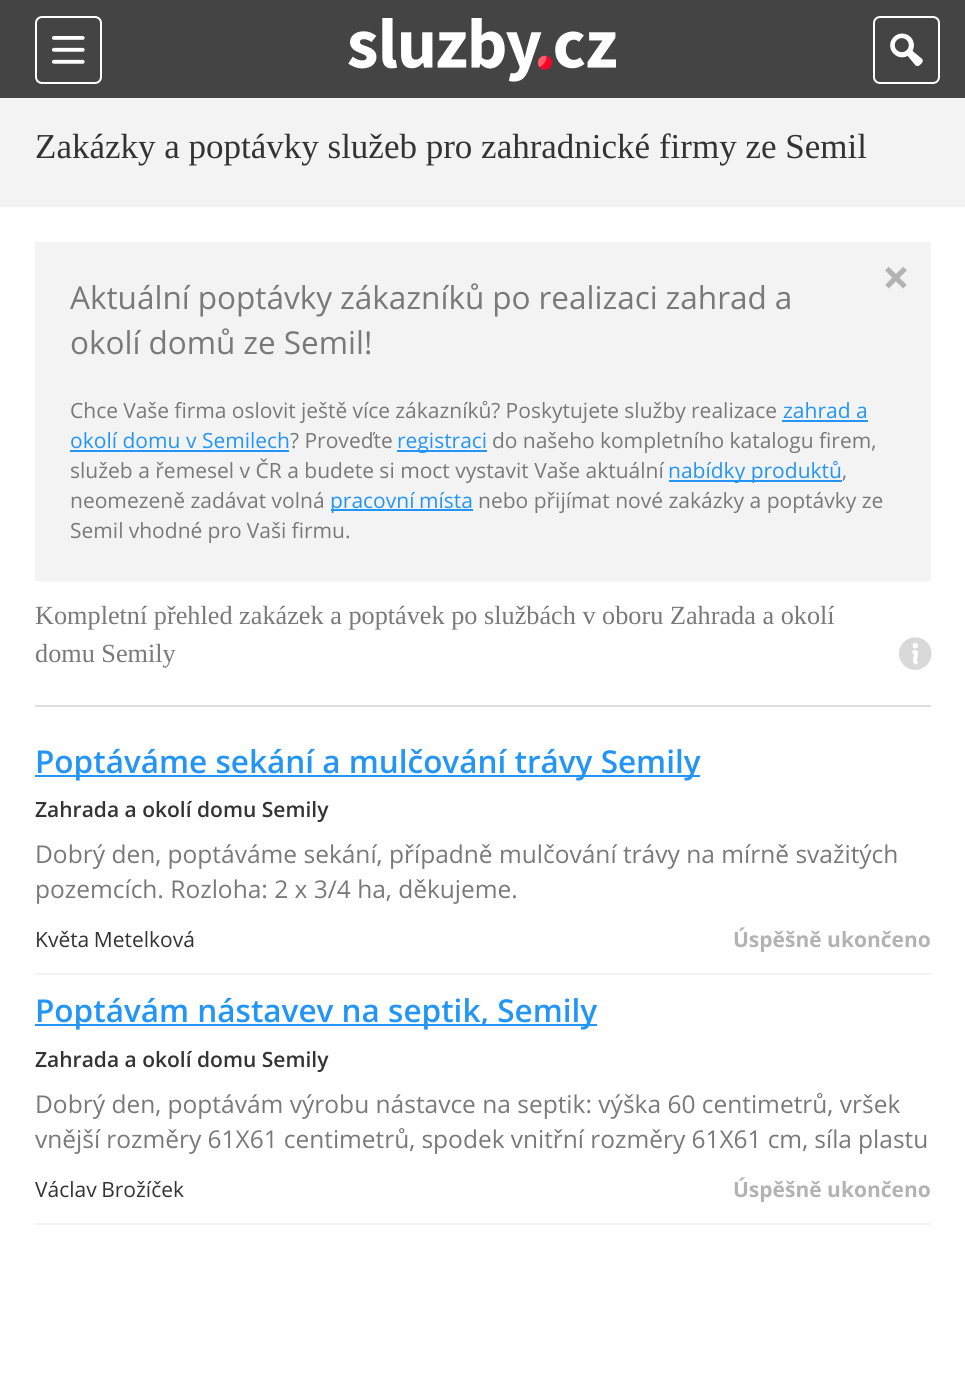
import math
import cairo

surface = cairo.ImageSurface(cairo.FORMAT_RGB24, 965, 1387)
cr = cairo.Context(surface)
options = cairo.FontOptions()
options.set_hint_metrics(cairo.HINT_METRICS_OFF)
options.set_hint_style(cairo.HINT_STYLE_NONE)
cr.set_font_options(options)
cr.set_miter_limit(4)


def rgb(code):
    cr.set_source_rgb(*(v / 255 for v in bytes.fromhex(code[-6:])))


def tracked(x, y, s, letter, word):
    cr.move_to(x, y)
    for ch in s:
        cr.show_text(ch)
        cr.rel_move_to(letter + word * (ch == ' '), 0)


def rrect(x, y, w, h, r):
    cr.new_sub_path()
    for i, (u, v) in enumerate([(x + w - r, y + h - r), (x + r, y + h - r), (x + r, y + r), (x + w - r, y + r)]):
        cr.arc(u, v, r, i * math.pi / 2, (i + 1) * math.pi / 2)
    cr.close_path()


def image(path, x, y, w, h):
    cr.save()
    cr.set_source_surface(cairo.ImageSurface.create_from_png(path), x, y)
    cr.rectangle(x, y, w, h)
    cr.fill()
    cr.restore()


rgb("#ffffff")
cr.paint()
rgb("#444444")
cr.rectangle(0, 0, 965, 98)
cr.fill()
rrect(36, 17, 65, 66, 6)
rgb("#ffffff")
cr.stroke()
image("img/1.png", 52, 36, 33, 28)
image("img/2.png", 348, 18, 268, 64)
rrect(874, 17, 65, 66, 6)
cr.stroke()
image("img/3.png", 890, 33, 33, 34)
for x, y, w, h, color in [
    (0, 98, 965, 109, "#f3f3f3"),
    (35, 705, 896, 2, "#dddddd"),
    (35, 242, 896, 339, "#f3f3f3"),
    (782, 420, 86, 2, "#2395f7"),
    (70, 450, 219, 2, "#2395f7"),
    (397, 450, 90, 2, "#2395f7"),
    (669, 480, 173, 2, "#2395f7"),
    (331, 509, 142, 2, "#2395f7"),
]:
    rgb(color)
    cr.rectangle(x, y, w, h)
    cr.fill()
image("img/4.png", 899, 637, 33, 33)
for x, y, w, h, color in [
    (35, 973, 896, 2, "#f3f3f3"),
    (35, 775, 665, 2, "#2395f7"),
    (35, 1223, 896, 2, "#f3f3f3"),
    (35, 1024, 562, 2, "#2395f7"),
]:
    rgb(color)
    cr.rectangle(x, y, w, h)
    cr.fill()
cr.select_font_face("Liberation Serif")
cr.set_font_size(35)
rgb("#333333")
cr.move_to(35, 158)
cr.show_text("Zakázky a poptávky služeb pro zahradnické firmy ze Semil")
cr.select_font_face("Open Sans", cairo.FONT_SLANT_NORMAL, cairo.FONT_WEIGHT_BOLD)
cr.set_font_size(49)
rgb("#b3b3b3")
cr.move_to(882, 295)
cr.show_text("×")
cr.select_font_face("Open Sans")
cr.set_font_size(31.5)
rgb("#797979")
tracked(70, 309, "Aktuální poptávky zákazníků po realizaci zahrad a", 0, -0.25)
tracked(70, 354, "okolí domů ze Semil!", 0, -0.25)
cr.set_font_size(21)
tracked(70, 418, "Chce Vaše firma oslovit ještě více zákazníků? Poskytujete služby realizace", 0, -0.25)
rgb("#2395f7")
cr.move_to(783, 418)
cr.show_text("zahrad a")
cr.move_to(70, 448)
cr.show_text("okolí domu v Semilech")
rgb("#797979")
cr.move_to(290, 448)
cr.show_text("? Proveďte")
rgb("#2395f7")
cr.move_to(397, 448)
cr.show_text("registraci")
rgb("#797979")
tracked(492, 448, "do našeho kompletního katalogu firem,", 0, -0.25)
cr.move_to(70, 478)
cr.show_text("služeb a řemesel v ČR a budete si moct vystavit Vaše aktuální")
rgb("#2395f7")
cr.move_to(668, 478)
cr.show_text("nabídky produktů")
rgb("#797979")
cr.move_to(842, 478)
cr.show_text(",")
cr.move_to(70, 508)
cr.show_text("neomezeně zadávat volná")
rgb("#2395f7")
tracked(330, 508, "pracovní místa", 0, -1)
rgb("#797979")
cr.move_to(478, 508)
cr.show_text("nebo přijímat nové zakázky a poptávky ze")
tracked(70, 538, "Semil vhodné pro Vaši firmu.", 0, -0.25)
cr.select_font_face("Liberation Serif")
cr.set_font_size(26.25)
cr.move_to(35, 624)
cr.show_text("Kompletní přehled zakázek a poptávek po službách v oboru Zahrada a okolí")
cr.move_to(35, 662)
cr.show_text("domu Semily")
cr.select_font_face("Open Sans SemiBold")
cr.set_font_size(31.5)
rgb("#2395f7")
cr.move_to(35, 773)
cr.show_text("Poptáváme sekání a mulčování trávy Semily")
cr.set_font_size(21)
rgb("#333333")
cr.move_to(35, 817)
cr.show_text("Zahrada a okolí domu Semily")
cr.select_font_face("Open Sans")
cr.set_font_size(24.5)
rgb("#797979")
cr.move_to(35, 863)
cr.show_text("Dobrý den, poptáváme sekání, případně mulčování trávy na mírně svažitých")
cr.move_to(35, 898)
cr.show_text("pozemcích. Rozloha: 2 x 3/4 ha, děkujeme.")
cr.set_font_size(21)
rgb("#333333")
tracked(35, 947, "Květa Metelková", 0, -1)
cr.select_font_face("Open Sans", cairo.FONT_SLANT_NORMAL, cairo.FONT_WEIGHT_BOLD)
rgb("#b3b3b3")
cr.move_to(733, 947)
cr.show_text("Úspěšně ukončeno")
cr.select_font_face("Open Sans SemiBold")
cr.set_font_size(31.5)
rgb("#2395f7")
cr.move_to(35, 1022)
cr.show_text("Poptávám nástavev na septik, Semily")
cr.set_font_size(21)
rgb("#333333")
cr.move_to(35, 1067)
cr.show_text("Zahrada a okolí domu Semily")
cr.select_font_face("Open Sans")
cr.set_font_size(24.5)
rgb("#797979")
cr.move_to(35, 1113)
cr.show_text("Dobrý den, poptávám výrobu nástavce na septik: výška 60 centimetrů, vršek")
tracked(35, 1148, "vnější rozměry 61X61 centimetrů, spodek vnitřní rozměry 61X61 cm, síla plastu", 0, -0.25)
cr.set_font_size(21)
rgb("#333333")
tracked(35, 1197, "Václav Brožíček", 0, -1)
cr.select_font_face("Open Sans", cairo.FONT_SLANT_NORMAL, cairo.FONT_WEIGHT_BOLD)
rgb("#b3b3b3")
cr.move_to(733, 1197)
cr.show_text("Úspěšně ukončeno")
surface.write_to_png("page.png")
